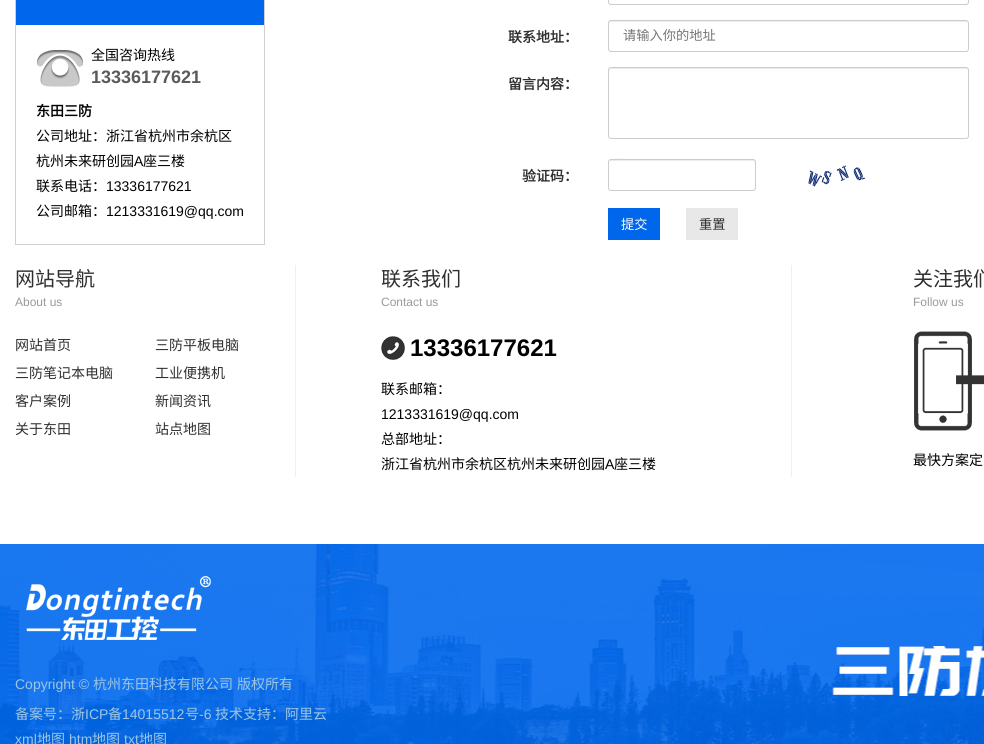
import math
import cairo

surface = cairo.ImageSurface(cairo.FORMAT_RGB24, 984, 744)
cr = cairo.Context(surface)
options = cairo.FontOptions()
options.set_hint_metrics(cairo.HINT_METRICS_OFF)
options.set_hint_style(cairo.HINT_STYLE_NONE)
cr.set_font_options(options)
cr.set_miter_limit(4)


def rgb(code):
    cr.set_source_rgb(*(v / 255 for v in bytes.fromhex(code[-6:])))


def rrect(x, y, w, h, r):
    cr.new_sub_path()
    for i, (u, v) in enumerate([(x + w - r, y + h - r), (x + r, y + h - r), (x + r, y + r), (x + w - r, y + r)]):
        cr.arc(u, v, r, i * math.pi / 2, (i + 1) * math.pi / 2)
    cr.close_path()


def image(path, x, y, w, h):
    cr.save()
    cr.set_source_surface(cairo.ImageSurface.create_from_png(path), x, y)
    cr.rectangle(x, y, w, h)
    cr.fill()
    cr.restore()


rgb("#ffffff")
cr.paint()
cr.rectangle(15.5, -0.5, 249, 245)
rgb("#d1d1d1")
cr.set_line_width(1)
cr.stroke()
rgb("#0067ed")
cr.rectangle(16, 0, 248, 25)
cr.fill()
image("img/1.png", 37, 50, 46, 37)
rrect(608.5, -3.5, 360, 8, 2.5)
rgb("#cccccc")
cr.stroke()
rgb("#ececec")
cr.new_path()
cr.move_to(611, 22)
cr.line_to(966, 22)
cr.curve_to(967, 22, 968, 23, 968, 24)
cr.curve_to(968, 23, 968, 21, 966, 21)
cr.line_to(611, 21)
cr.curve_to(609, 21, 609, 23, 609, 24)
cr.curve_to(609, 23, 610, 22, 611, 22)
cr.close_path()
cr.fill()
rrect(608.5, 20.5, 360, 31, 2.5)
rgb("#cccccc")
cr.stroke()
rgb("#ececec")
cr.new_path()
cr.move_to(611, 69)
cr.line_to(966, 69)
cr.curve_to(967, 69, 968, 70, 968, 71)
cr.curve_to(968, 70, 968, 68, 966, 68)
cr.line_to(611, 68)
cr.curve_to(609, 68, 609, 70, 609, 71)
cr.curve_to(609, 70, 610, 69, 611, 69)
cr.close_path()
cr.fill()
rrect(608.5, 67.5, 360, 71, 2.5)
rgb("#cccccc")
cr.stroke()
rgb("#ececec")
cr.new_path()
cr.move_to(611, 161)
cr.line_to(753, 161)
cr.curve_to(754, 161, 755, 162, 755, 163)
cr.curve_to(755, 162, 755, 161, 754, 160)
cr.line_to(635, 160)
cr.curve_to(631, 160, 609, 155, 609, 163)
cr.curve_to(609, 162, 610, 161, 611, 161)
cr.close_path()
cr.fill()
rrect(608.5, 159.5, 147, 31, 2.5)
rgb("#cccccc")
cr.stroke()
image("img/2.png", 808, 165, 57, 22)
for x, y, w, h, color in [
    (608, 208, 52, 32, "#0067ed"),
    (686, 208, 52, 32, "#e8e8e8"),
    (791, 265, 1, 212, "#efefef"),
    (295, 265, 1, 212, "#efefef"),
]:
    rgb(color)
    cr.rectangle(x, y, w, h)
    cr.fill()
image("img/3.png", 381, 336, 24, 24)
image("img/4.png", 914, 331, 70, 100)
image("img/5.png", 0, 544, 984, 200)
image("img/6.png", 26, 576, 185, 64)
cr.select_font_face("Noto Sans CJK SC")
cr.set_font_size(14)
rgb("#000000")
cr.move_to(91, 60)
cr.show_text("全国咨询热线")
cr.select_font_face("Liberation Sans", cairo.FONT_SLANT_NORMAL, cairo.FONT_WEIGHT_BOLD)
cr.set_font_size(18)
rgb("#5b5b5b")
cr.move_to(91, 83)
cr.show_text("13336177621")
cr.select_font_face("Noto Sans CJK SC", cairo.FONT_SLANT_NORMAL, cairo.FONT_WEIGHT_BOLD)
cr.set_font_size(14)
rgb("#000000")
cr.move_to(36, 116)
cr.show_text("东田三防")
cr.select_font_face("Noto Sans CJK SC")
cr.move_to(36, 141)
cr.show_text("公司地址：浙江省杭州市余杭区")
cr.move_to(36, 166)
cr.show_text("杭州未来研创园")
cr.select_font_face("Liberation Sans")
cr.move_to(134, 166)
cr.show_text("A")
cr.select_font_face("Noto Sans CJK SC")
cr.move_to(143, 166)
cr.show_text("座三楼")
cr.move_to(36, 191)
cr.show_text("联系电话：")
cr.select_font_face("Liberation Sans")
cr.move_to(106, 191)
cr.show_text("13336177621")
cr.select_font_face("Noto Sans CJK SC")
cr.move_to(36, 216)
cr.show_text("公司邮箱：")
cr.select_font_face("Liberation Sans")
cr.move_to(106, 216)
cr.show_text("1213331619@qq.com")
cr.select_font_face("Noto Sans CJK SC", cairo.FONT_SLANT_NORMAL, cairo.FONT_WEIGHT_BOLD)
rgb("#2f2f2f")
cr.move_to(508, 42)
cr.show_text("联系地址：")
cr.select_font_face("Noto Sans CJK SC")
cr.set_font_size(13.25)
rgb("#757575")
cr.move_to(623, 40)
cr.show_text("请输入你的地址")
cr.select_font_face("Noto Sans CJK SC", cairo.FONT_SLANT_NORMAL, cairo.FONT_WEIGHT_BOLD)
cr.set_font_size(14)
rgb("#2f2f2f")
cr.move_to(508, 89)
cr.show_text("留言内容：")
cr.move_to(522, 181)
cr.show_text("验证码：")
cr.select_font_face("Noto Sans CJK SC")
cr.set_font_size(13.25)
rgb("#ffffff")
cr.move_to(621, 229)
cr.show_text("提交")
rgb("#2f2f2f")
cr.move_to(699, 229)
cr.show_text("重置")
cr.set_font_size(20)
cr.move_to(15, 286)
cr.show_text("网站导航")
cr.select_font_face("Liberation Sans")
cr.set_font_size(12)
rgb("#999999")
cr.move_to(15, 306)
cr.show_text("About us")
cr.select_font_face("Noto Sans CJK SC")
cr.set_font_size(14)
rgb("#2f2f2f")
for x, y, s in [
    (15, 350, "网站首页"),
    (155, 350, "三防平板电脑"),
    (15, 378, "三防笔记本电脑"),
    (155, 378, "工业便携机"),
    (15, 406, "客户案例"),
    (155, 406, "新闻资讯"),
    (15, 434, "关于东田"),
    (155, 434, "站点地图"),
]:
    cr.move_to(x, y)
    cr.show_text(s)
cr.set_font_size(20)
cr.move_to(381, 286)
cr.show_text("联系我们")
cr.select_font_face("Liberation Sans")
cr.set_font_size(12)
rgb("#999999")
cr.move_to(381, 306)
cr.show_text("Contact us")
cr.select_font_face("Liberation Sans", cairo.FONT_SLANT_NORMAL, cairo.FONT_WEIGHT_BOLD)
cr.set_font_size(24)
rgb("#000000")
cr.move_to(410, 356)
cr.show_text("13336177621")
cr.select_font_face("Noto Sans CJK SC")
cr.set_font_size(14)
cr.move_to(381, 394)
cr.show_text("联系邮箱：")
cr.select_font_face("Liberation Sans")
cr.move_to(381, 419)
cr.show_text("1213331619@qq.com")
cr.select_font_face("Noto Sans CJK SC")
cr.move_to(381, 444)
cr.show_text("总部地址：")
cr.move_to(381, 469)
cr.show_text("浙江省杭州市余杭区杭州未来研创园")
cr.select_font_face("Liberation Sans")
cr.move_to(605, 469)
cr.show_text("A")
cr.select_font_face("Noto Sans CJK SC")
cr.move_to(614, 469)
cr.show_text("座三楼")
cr.set_font_size(20)
rgb("#2f2f2f")
cr.move_to(913, 286)
cr.show_text("关注我们")
cr.select_font_face("Liberation Sans")
cr.set_font_size(12)
rgb("#999999")
cr.move_to(913, 306)
cr.show_text("Follow us")
cr.select_font_face("Noto Sans CJK SC")
cr.set_font_size(14)
rgb("#000000")
cr.move_to(913, 465)
cr.show_text("最快方案定")
cr.select_font_face("Liberation Sans")
rgb("#9dc6e4")
cr.move_to(15, 689)
cr.show_text("Copyright ©")
cr.select_font_face("Noto Sans CJK SC")
for x, y, s in [
    (93, 689, "杭州东田科技有限公司"),
    (237, 689, "版权所有"),
    (15, 719, "备案号：浙"),
]:
    cr.move_to(x, y)
    cr.show_text(s)
cr.select_font_face("Liberation Sans")
cr.move_to(85, 719)
cr.show_text("ICP")
cr.select_font_face("Noto Sans CJK SC")
cr.move_to(108, 719)
cr.show_text("备")
cr.select_font_face("Liberation Sans")
cr.move_to(122, 719)
cr.show_text("14015512")
cr.select_font_face("Noto Sans CJK SC")
cr.move_to(185, 719)
cr.show_text("号")
cr.select_font_face("Liberation Sans")
cr.move_to(199, 719)
cr.show_text("-6")
cr.select_font_face("Noto Sans CJK SC")
cr.move_to(215, 719)
cr.show_text("技术支持：阿里云")
cr.select_font_face("Liberation Sans")
cr.move_to(15, 744)
cr.show_text("xml")
cr.select_font_face("Noto Sans CJK SC")
cr.move_to(37, 744)
cr.show_text("地图")
cr.select_font_face("Liberation Sans")
cr.move_to(69, 744)
cr.show_text("htm")
cr.select_font_face("Noto Sans CJK SC")
cr.move_to(92, 744)
cr.show_text("地图")
cr.select_font_face("Liberation Sans")
cr.move_to(124, 744)
cr.show_text("txt")
cr.select_font_face("Noto Sans CJK SC")
cr.move_to(139, 744)
cr.show_text("地图")
surface.write_to_png("page.png")
